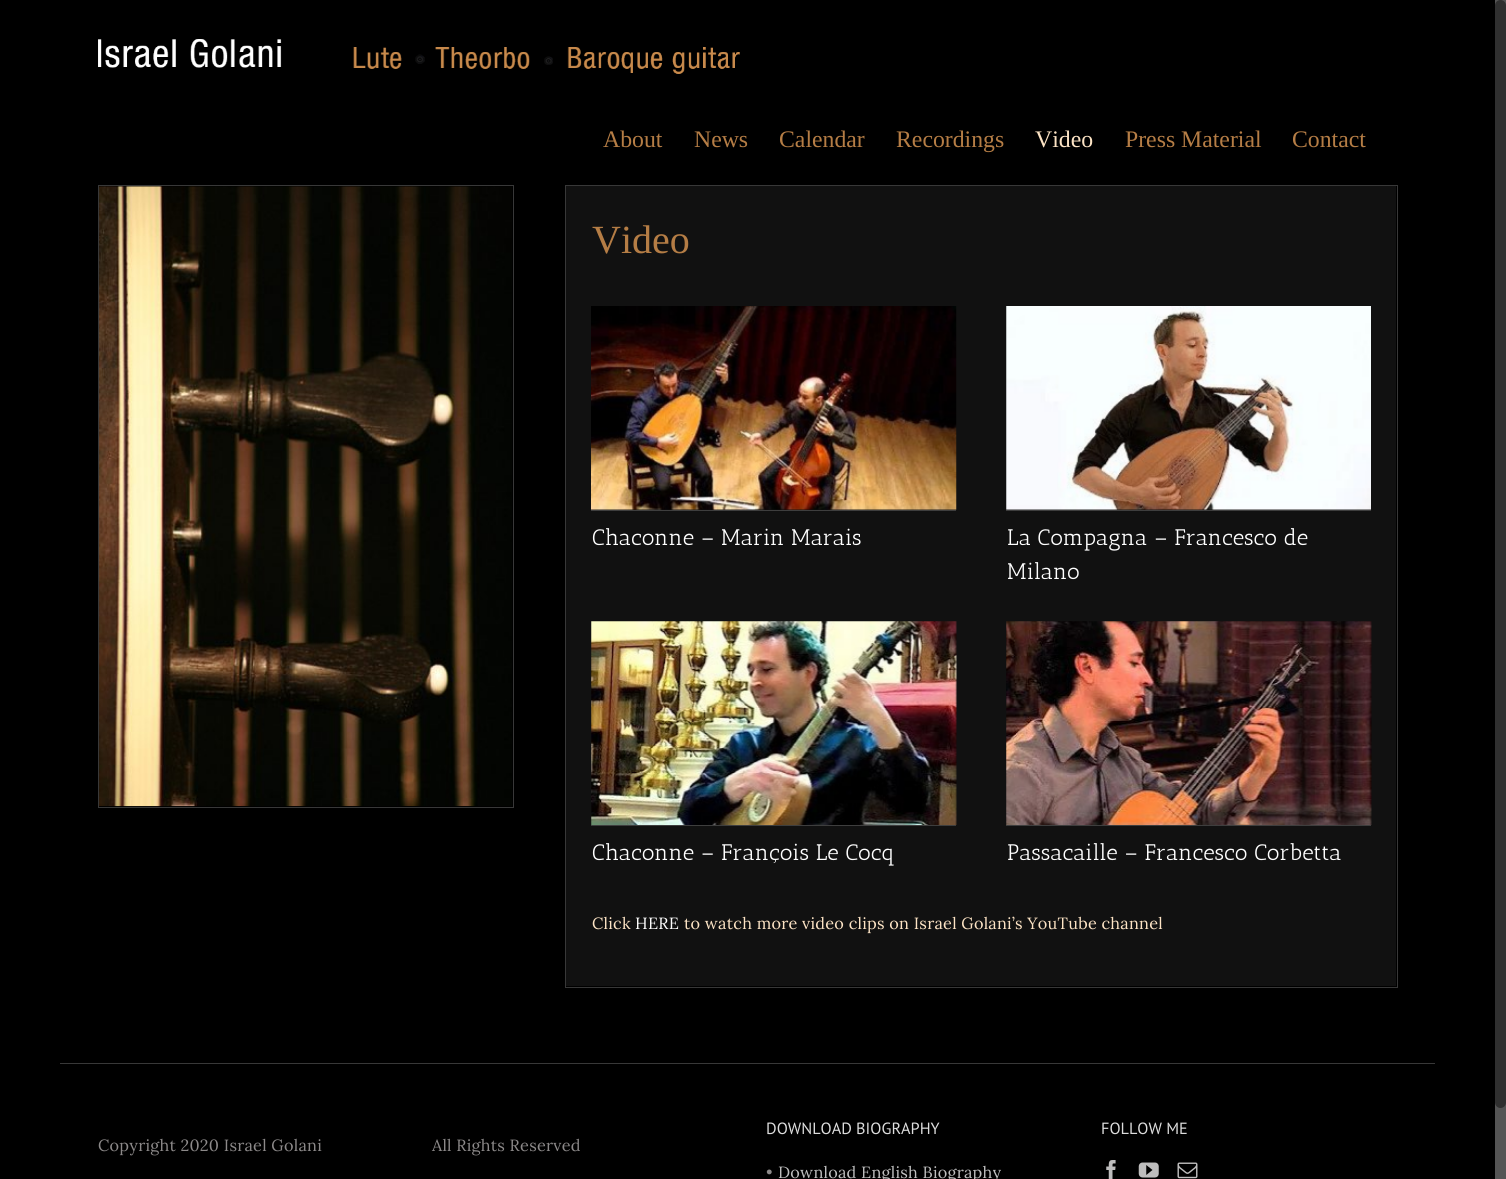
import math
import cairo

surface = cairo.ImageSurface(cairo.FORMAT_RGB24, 1506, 1179)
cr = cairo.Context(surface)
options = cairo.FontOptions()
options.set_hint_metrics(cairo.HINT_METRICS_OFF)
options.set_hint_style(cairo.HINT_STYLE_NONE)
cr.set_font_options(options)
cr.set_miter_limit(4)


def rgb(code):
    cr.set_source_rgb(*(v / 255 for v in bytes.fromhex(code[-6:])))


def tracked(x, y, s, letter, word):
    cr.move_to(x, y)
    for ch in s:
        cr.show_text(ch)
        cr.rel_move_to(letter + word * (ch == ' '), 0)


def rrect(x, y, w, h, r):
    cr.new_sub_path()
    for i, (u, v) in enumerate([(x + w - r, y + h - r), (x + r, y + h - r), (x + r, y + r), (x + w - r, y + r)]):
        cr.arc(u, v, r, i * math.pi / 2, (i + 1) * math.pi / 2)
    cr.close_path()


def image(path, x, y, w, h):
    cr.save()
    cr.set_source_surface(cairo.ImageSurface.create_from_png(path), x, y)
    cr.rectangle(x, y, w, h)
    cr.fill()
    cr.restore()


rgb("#000000")
cr.paint()
image("img/1.png", 98, 39, 642, 35)
cr.rectangle(98.5, 185.5, 415, 622)
rgb("#383838")
cr.set_line_width(1)
cr.stroke()
image("img/2.png", 99, 186, 413, 621)
cr.rectangle(565.5, 185.5, 832, 802)
cr.stroke()
rgb("#111111")
cr.rectangle(566, 186, 830, 800)
cr.fill()
rgb("#3e3e3e")
cr.rectangle(591, 510, 365, 1)
cr.fill()
image("img/3.png", 591, 306, 366, 204)
cr.rectangle(1006, 510, 365, 1)
cr.fill()
image("img/4.png", 1006, 306, 365, 204)
cr.rectangle(591, 825, 365, 1)
cr.fill()
image("img/5.png", 591, 621, 366, 204)
cr.rectangle(1006, 825, 365, 1)
cr.fill()
image("img/6.png", 1006, 621, 366, 204)
rgb("#383838")
cr.rectangle(60, 1063, 1375, 1)
cr.fill()
image("img/7.png", 1106, 1160, 10, 19)
image("img/8.png", 1138, 1162, 21, 16)
image("img/9.png", 1177, 1162, 21, 17)
rgb("#555555")
cr.rectangle(1495, 0, 11, 1179)
cr.fill()
rgb("#303030")
rrect(1495, 0, 11, 1108, 5.5)
cr.fill()
cr.select_font_face("Liberation Serif")
cr.set_font_size(23.75)
rgb("#b57d45")
for x, y, s in [
    (603, 147, "About"),
    (694, 147, "News"),
    (779, 147, "Calendar"),
    (896, 147, "Recordings"),
]:
    cr.move_to(x, y)
    cr.show_text(s)
rgb("#fde4c5")
cr.move_to(1035, 147)
cr.show_text("Video")
rgb("#b57d45")
cr.move_to(1125, 147)
cr.show_text("Press Material")
cr.move_to(1292, 147)
cr.show_text("Contact")
cr.set_font_size(40)
cr.move_to(592, 253)
cr.show_text("Video")
cr.select_font_face("Antic Slab")
cr.set_font_size(22.5)
rgb("#ffffff")
for x, y, s in [
    (592, 545, "Chaconne – Marin Marais"),
    (1007, 545, "La Compagna – Francesco de"),
    (1007, 579, "Milano"),
    (592, 860, "Chaconne – François Le Cocq"),
    (1007, 860, "Passacaille – Francesco Corbetta"),
]:
    cr.move_to(x, y)
    cr.show_text(s)
cr.select_font_face("Lora")
cr.set_font_size(16.25)
rgb("#fde4c5")
tracked(592, 929, "Click", 0.25, 0)
rgb("#ffffff")
tracked(635, 929, "HERE", 0.25, 0)
rgb("#fde4c5")
tracked(684, 929, "to watch more video clips on Israel Golani’s YouTube channel", 0.25, 0)
cr.select_font_face("PT Sans")
rgb("#dddddd")
cr.move_to(766, 1134)
cr.show_text("DOWNLOAD BIOGRAPHY")
cr.select_font_face("Lora")
rgb("#8c8989")
tracked(766, 1178, "•", 0.25, 0)
rgb("#bfbfbf")
tracked(778, 1178, "Download English Biography", 0.25, 0)
cr.select_font_face("PT Sans")
rgb("#dddddd")
cr.move_to(1101, 1134)
cr.show_text("FOLLOW ME")
cr.select_font_face("Lora")
rgb("#8c8989")
tracked(98, 1151, "Copyright 2020 Israel Golani", 0.25, 0)
tracked(432, 1151, "All Rights Reserved", 0.25, 0)
surface.write_to_png("page.png")
